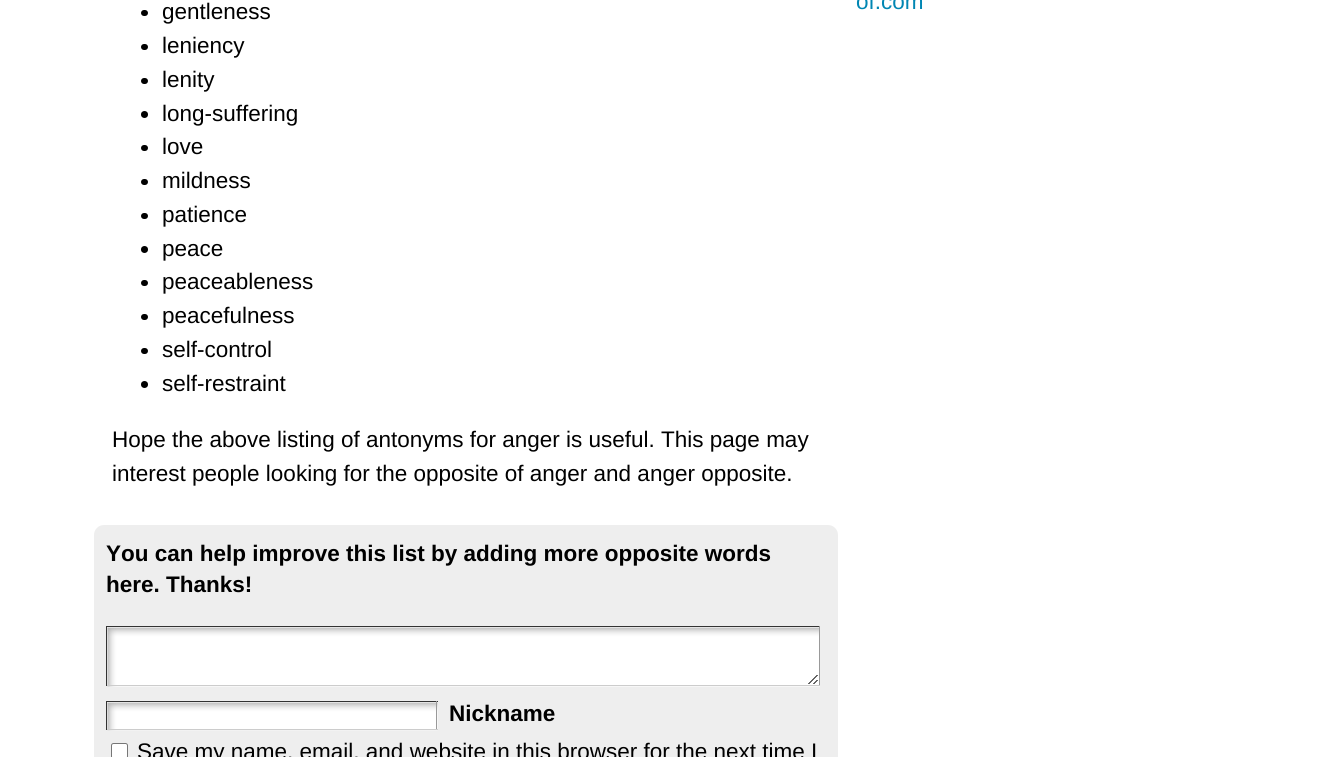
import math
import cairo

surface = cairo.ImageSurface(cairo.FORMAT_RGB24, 1336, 757)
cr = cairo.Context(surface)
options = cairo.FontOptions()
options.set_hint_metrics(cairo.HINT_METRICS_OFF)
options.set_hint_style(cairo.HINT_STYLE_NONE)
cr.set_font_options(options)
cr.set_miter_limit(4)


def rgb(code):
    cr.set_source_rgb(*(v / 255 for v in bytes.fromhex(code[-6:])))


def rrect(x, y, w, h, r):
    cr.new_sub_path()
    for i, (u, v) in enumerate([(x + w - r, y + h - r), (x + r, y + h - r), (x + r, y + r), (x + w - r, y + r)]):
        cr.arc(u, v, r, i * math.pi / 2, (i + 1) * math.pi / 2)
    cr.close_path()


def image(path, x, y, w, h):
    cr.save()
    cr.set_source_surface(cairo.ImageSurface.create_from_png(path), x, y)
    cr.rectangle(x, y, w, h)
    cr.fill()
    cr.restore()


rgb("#ffffff")
cr.paint()
rgb("#000000")
rrect(141, 10, 7, 6, 3)
cr.fill()
rrect(141, 44, 7, 6, 3)
cr.fill()
rrect(141, 78, 7, 6, 3)
cr.fill()
cr.arc(144.5, 114.5, 3.5, 0, 2 * math.pi)
cr.fill()
rrect(141, 145, 7, 6, 3)
cr.fill()
rrect(141, 179, 7, 6, 3)
cr.fill()
rrect(141, 213, 7, 6, 3)
cr.fill()
cr.arc(144.5, 249.5, 3.5, 0, 2 * math.pi)
cr.fill()
rrect(141, 280, 7, 6, 3)
cr.fill()
rrect(141, 314, 7, 6, 3)
cr.fill()
rrect(141, 348, 7, 6, 3)
cr.fill()
cr.arc(144.5, 384.5, 3.5, 0, 2 * math.pi)
cr.fill()
rgb("#eeeeee")
rrect(94, 525, 744, 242, 10)
cr.fill()
image("img/1.png", 107, 627, 713, 60)
for x, y, w, h, color in [
    (106, 626, 714, 1, "#333333"),
    (819, 626, 1, 60, "#999999"),
    (106, 685, 714, 1, "#cccccc"),
    (106, 626, 1, 60, "#333333"),
]:
    rgb(color)
    cr.rectangle(x, y, w, h)
    cr.fill()
image("img/2.png", 107, 702, 331, 29)
for x, y, w, h, color in [
    (106, 701, 332, 1, "#333333"),
    (436, 701, 1, 29, "#999999"),
    (106, 729, 332, 1, "#cccccc"),
    (106, 701, 1, 29, "#333333"),
]:
    rgb(color)
    cr.rectangle(x, y, w, h)
    cr.fill()
rgb("#ffffff")
rrect(111.5, 743.5, 16, 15, 2)
cr.fill_preserve()
rgb("#767676")
cr.set_line_width(1)
cr.stroke()
cr.select_font_face("Liberation Sans")
cr.set_font_size(22.5)
rgb("#000000")
for x, y, s in [
    (162, 19, "gentleness"),
    (162, 53, "leniency"),
    (162, 87, "lenity"),
    (162, 121, "long-suffering"),
    (162, 154, "love"),
    (162, 188, "mildness"),
    (162, 222, "patience"),
    (162, 256, "peace"),
    (162, 289, "peaceableness"),
    (162, 323, "peacefulness"),
    (162, 357, "self-control"),
    (162, 391, "self-restraint"),
    (112, 447, "Hope the above listing of antonyms for anger is useful. This page may"),
    (112, 481, "interest people looking for the opposite of anger and anger opposite."),
]:
    cr.move_to(x, y)
    cr.show_text(s)
cr.select_font_face("Liberation Sans", cairo.FONT_SLANT_NORMAL, cairo.FONT_WEIGHT_BOLD)
for x, y, s in [
    (106, 561, "You can help improve this list by adding more opposite words"),
    (106, 592, "here. Thanks!"),
    (449, 721, "Nickname"),
]:
    cr.move_to(x, y)
    cr.show_text(s)
cr.select_font_face("Liberation Sans")
cr.move_to(137, 759)
cr.show_text("Save my name, email, and website in this browser for the next time I")
rgb("#0086b3")
cr.move_to(856, 9)
cr.show_text("of.com")
surface.write_to_png("page.png")
